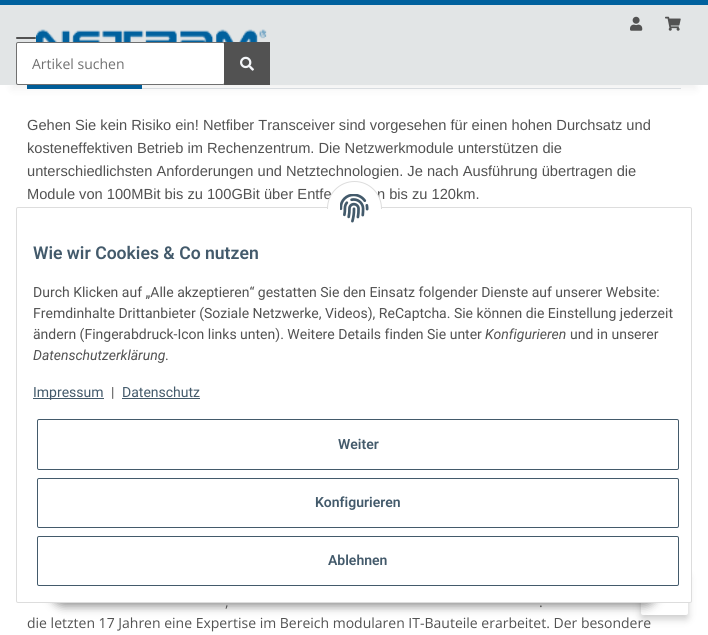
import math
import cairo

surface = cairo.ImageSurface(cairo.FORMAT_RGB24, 708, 635)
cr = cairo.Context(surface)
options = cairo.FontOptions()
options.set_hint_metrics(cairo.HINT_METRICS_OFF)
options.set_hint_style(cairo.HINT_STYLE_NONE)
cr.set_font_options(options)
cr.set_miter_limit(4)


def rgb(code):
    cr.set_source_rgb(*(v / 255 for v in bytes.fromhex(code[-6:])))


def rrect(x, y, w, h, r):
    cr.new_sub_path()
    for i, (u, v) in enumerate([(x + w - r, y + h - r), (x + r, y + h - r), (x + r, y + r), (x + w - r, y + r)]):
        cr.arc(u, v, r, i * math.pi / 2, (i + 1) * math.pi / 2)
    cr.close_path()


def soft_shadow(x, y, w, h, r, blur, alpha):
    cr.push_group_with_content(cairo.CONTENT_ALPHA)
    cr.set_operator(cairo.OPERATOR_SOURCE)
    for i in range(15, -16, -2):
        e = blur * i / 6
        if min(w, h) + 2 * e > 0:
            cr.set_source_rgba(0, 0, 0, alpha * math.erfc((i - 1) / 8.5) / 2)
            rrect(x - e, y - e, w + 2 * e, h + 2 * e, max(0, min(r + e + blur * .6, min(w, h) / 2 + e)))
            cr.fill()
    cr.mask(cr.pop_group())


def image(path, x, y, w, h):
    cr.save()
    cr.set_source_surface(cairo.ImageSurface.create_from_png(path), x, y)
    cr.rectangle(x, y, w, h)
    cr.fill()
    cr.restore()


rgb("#ffffff")
cr.paint()
rgb("#dee2e6")
cr.rectangle(142, 88, 539, 1)
cr.fill()
rgb("#00619e")
cr.rectangle(27, 85, 115, 4)
cr.fill()
rgb("#000000")
soft_shadow(12, 28, 684, 61, 0, 4.5, 0.06)
rgb("#e2e5e6")
cr.rectangle(0, 5, 708, 80)
cr.fill()
rgb("#00619e")
cr.rectangle(0, 0, 708, 5)
cr.fill()
image("img/1.png", 630, 16, 13, 15)
image("img/2.png", 665, 16, 16, 15)
rgb("#525252")
rrect(16, 37, 20, 2, 1)
cr.fill()
image("img/3.png", 36, 29, 231, 15)
rgb("#ffffff")
rrect(16.5, 42.5, 208, 42, 1.5)
cr.fill_preserve()
rgb("#707070")
cr.set_line_width(1)
cr.stroke()
rgb("#525252")
cr.rectangle(224, 42, 46, 43)
cr.fill()
image("img/4.png", 240, 56, 14, 15)
rgb("#000000")
soft_shadow(641, 575, 47, 44, 2, 4, 0.2)
rgb("#ffffff")
rrect(641, 571, 47, 44, 2)
cr.fill()
rgb("#000000")
soft_shadow(51, 574, 606, 32, 16, 5, 0.45)
rgb("#ffffff")
rrect(16.5, 207.5, 675, 395, 1.5)
cr.fill_preserve()
rgb("#dddddd")
cr.stroke()
rgb("#435a6b")
cr.rectangle(33, 398, 71, 1)
cr.fill()
cr.rectangle(122, 398, 78, 1)
cr.fill()
rrect(37.5, 419.5, 641, 50, 1.5)
cr.stroke()
rrect(37.5, 478.5, 641, 49, 1.5)
cr.stroke()
rrect(37.5, 536.5, 641, 49, 1.5)
cr.stroke()
cr.select_font_face("Open Sans")
cr.set_font_size(14)
rgb("#707070")
cr.move_to(32, 69)
cr.show_text("Artikel suchen")
cr.select_font_face("Liberation Sans")
cr.set_font_size(14.65)
rgb("#525252")
for x, y, s in [
    (27, 130, "Gehen Sie kein Risiko ein! Netfiber Transceiver sind vorgesehen für einen hohen Durchsatz und"),
    (27, 153, "kosteneffektiven Betrieb im Rechenzentrum. Die Netzwerkmodule unterstützen die"),
    (27, 176, "unterschiedlichsten Anforderungen und Netztechnologien. Je nach Ausführung übertragen die"),
    (27, 199, "Module von 100MBit bis zu 100GBit über Entfe"),
    (377, 199, "n bis zu 120km."),
]:
    cr.move_to(x, y)
    cr.show_text(s)
cr.select_font_face("Open Sans")
cr.set_font_size(14)
for x, y, s in [
    (225, 607, ","),
    (539, 607, "."),
    (27, 628, "die letzten 17 Jahren eine Expertise im Bereich modularen IT-Bauteile erarbeitet. Der besondere"),
]:
    cr.move_to(x, y)
    cr.show_text(s)
rgb("#ffffff")
cr.new_path()
cr.arc(354.5, 208.5, 27, 0, 2 * math.pi)
cr.fill_preserve()
rgb("#dddddd")
cr.stroke()
rgb("#ffffff")
cr.rectangle(327, 209, 55, 27)
cr.fill()
image("img/5.png", 340, 194, 29, 29)
cr.select_font_face("Roboto SemiBold")
cr.set_font_size(17.6)
rgb("#435a6b")
cr.move_to(33, 259)
cr.show_text("Wie wir Cookies & Co nutzen")
cr.select_font_face("Roboto")
cr.set_font_size(14)
rgb("#525252")
for x, y, s in [
    (33, 297, "Durch Klicken auf „Alle akzeptieren“ gestatten Sie den Einsatz folgender Dienste auf unserer Website:"),
    (33, 318, "Fremdinhalte Drittanbieter (Soziale Netzwerke, Videos), ReCaptcha. Sie können die Einstellung jederzeit"),
    (33, 339, "ändern (Fingerabdruck-Icon links unten). Weitere Details finden Sie unter"),
]:
    cr.move_to(x, y)
    cr.show_text(s)
cr.select_font_face("Roboto", cairo.FONT_SLANT_ITALIC)
cr.move_to(485, 339)
cr.show_text("Konfigurieren")
cr.select_font_face("Roboto")
cr.move_to(570, 339)
cr.show_text("und in unserer")
cr.select_font_face("Roboto", cairo.FONT_SLANT_ITALIC)
cr.move_to(33, 360)
cr.show_text("Datenschutzerklärung")
cr.select_font_face("Roboto")
cr.move_to(165, 360)
cr.show_text(".")
rgb("#435a6b")
cr.move_to(33, 397)
cr.show_text("Impressum")
rgb("#525252")
cr.move_to(111, 397)
cr.show_text("|")
rgb("#435a6b")
cr.move_to(122, 397)
cr.show_text("Datenschutz")
cr.select_font_face("Roboto SemiBold")
for x, y, s in [
    (338, 449, "Weiter"),
    (315, 507, "Konfigurieren"),
    (328, 565, "Ablehnen"),
]:
    cr.move_to(x, y)
    cr.show_text(s)
surface.write_to_png("page.png")
